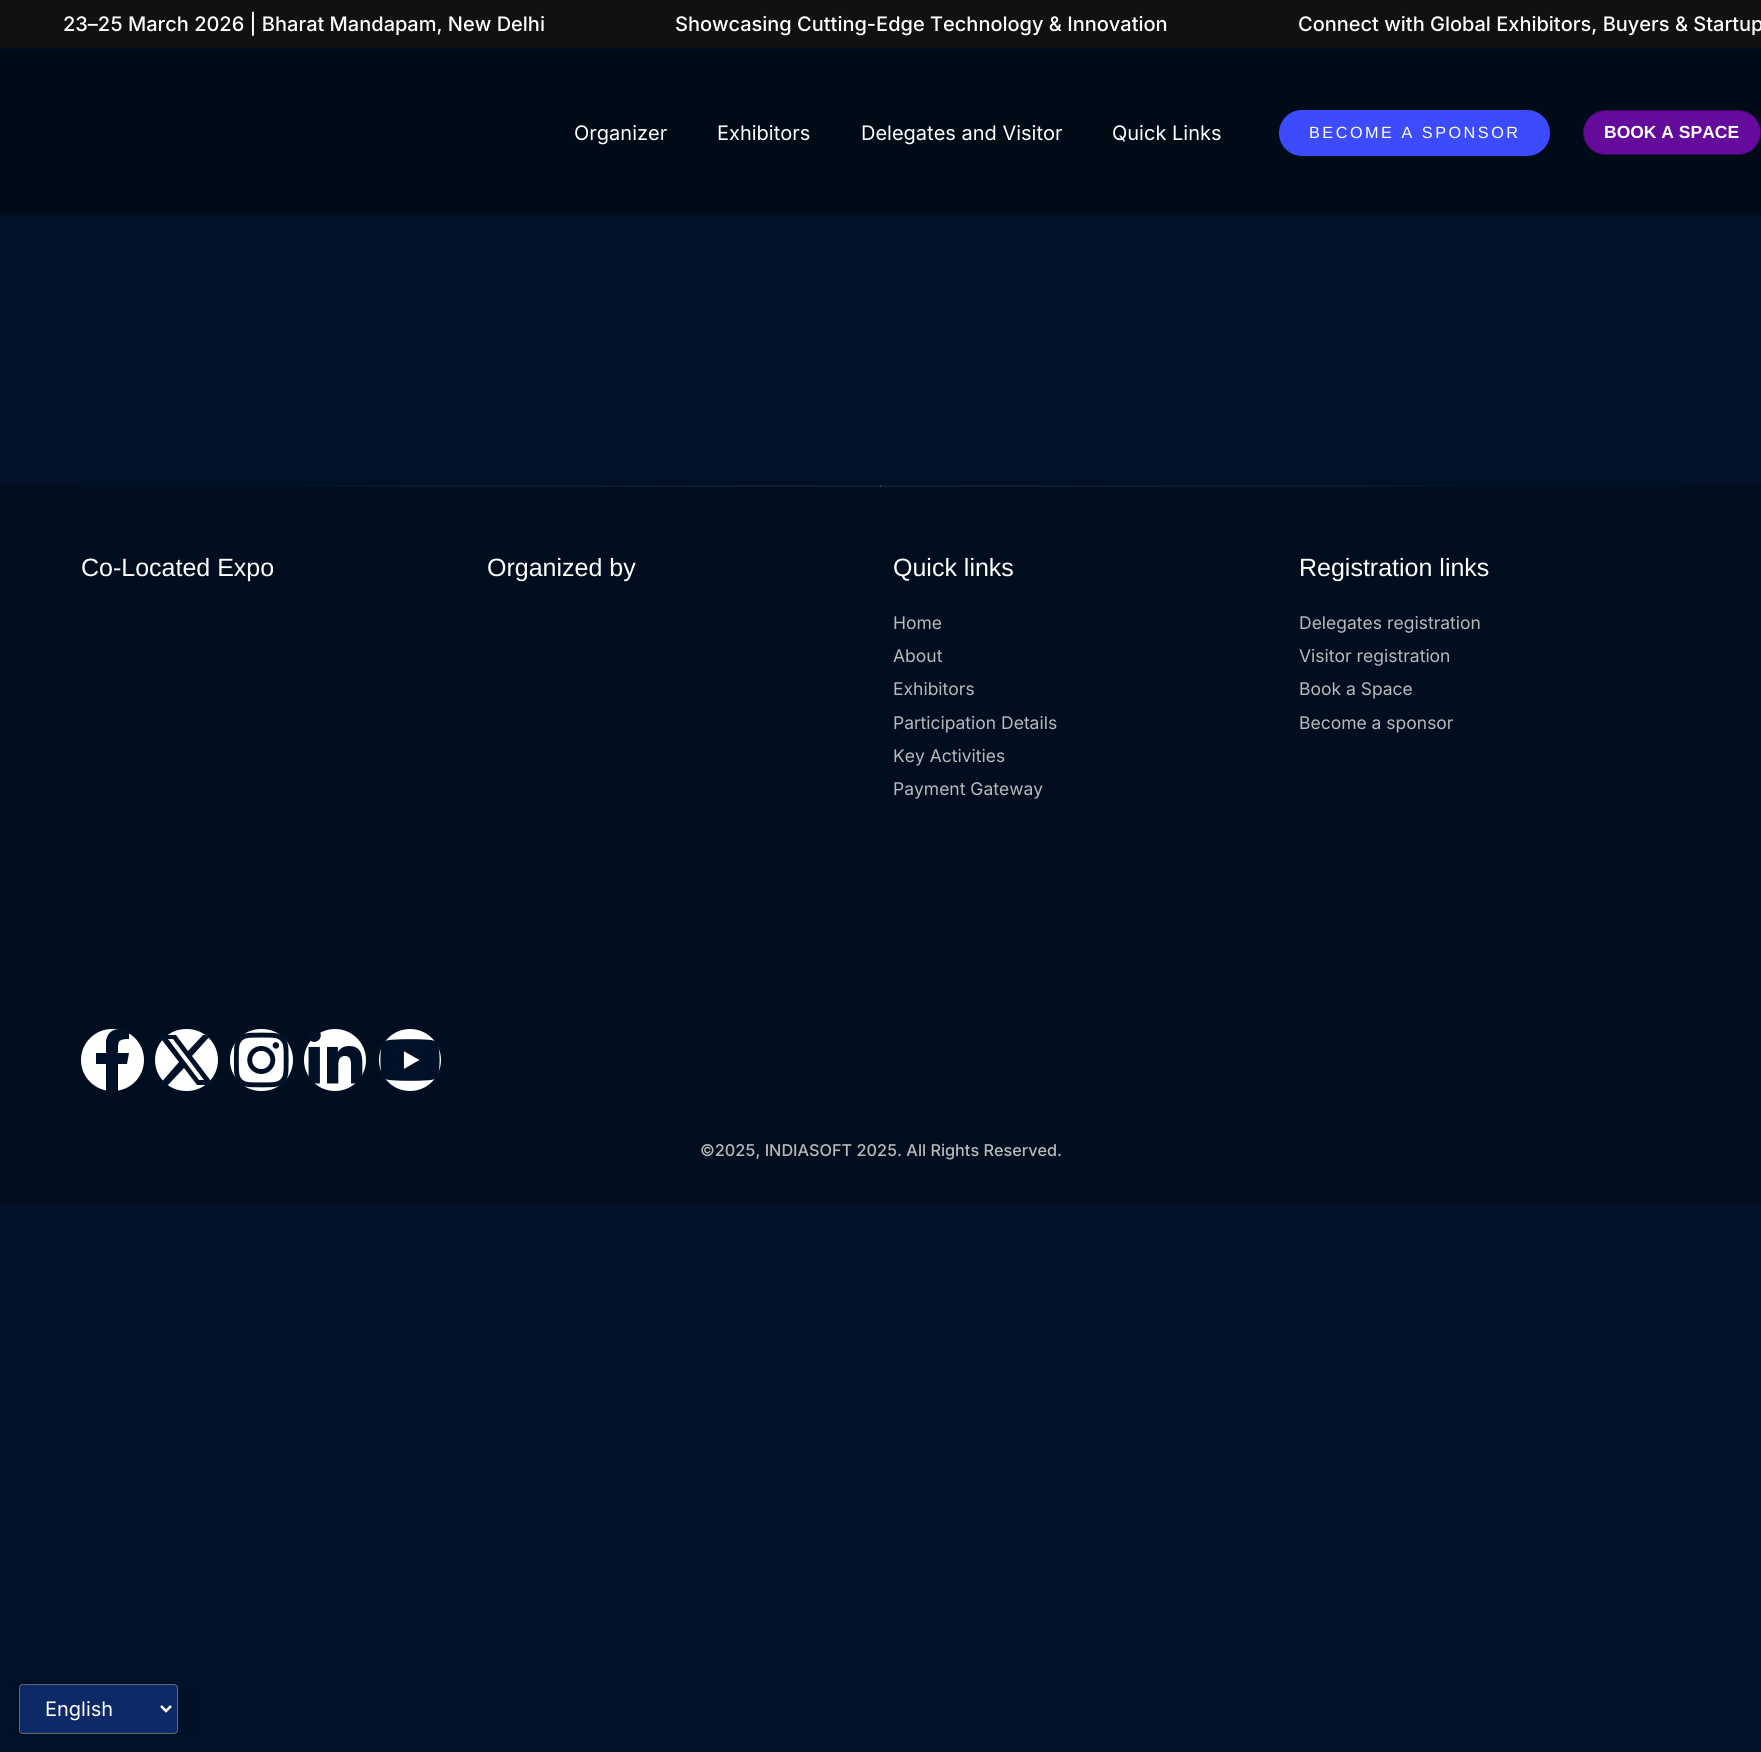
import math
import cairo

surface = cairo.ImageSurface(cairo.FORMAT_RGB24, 1761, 1752)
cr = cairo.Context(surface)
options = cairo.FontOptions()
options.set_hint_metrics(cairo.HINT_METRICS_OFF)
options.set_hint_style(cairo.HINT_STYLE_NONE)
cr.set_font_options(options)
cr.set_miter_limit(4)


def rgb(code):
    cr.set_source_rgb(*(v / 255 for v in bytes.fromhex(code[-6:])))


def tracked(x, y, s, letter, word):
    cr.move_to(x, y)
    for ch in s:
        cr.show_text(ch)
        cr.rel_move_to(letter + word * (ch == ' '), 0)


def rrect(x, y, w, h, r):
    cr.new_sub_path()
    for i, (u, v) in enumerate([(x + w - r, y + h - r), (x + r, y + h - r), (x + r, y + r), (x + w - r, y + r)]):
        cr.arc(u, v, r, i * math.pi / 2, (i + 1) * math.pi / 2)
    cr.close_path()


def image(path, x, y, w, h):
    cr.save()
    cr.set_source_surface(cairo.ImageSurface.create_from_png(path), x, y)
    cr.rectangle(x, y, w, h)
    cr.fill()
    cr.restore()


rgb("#001127")
cr.paint()
rgb("#111111")
cr.rectangle(0, 0, 1761, 48)
cr.fill()
rgb("#000b18")
cr.rectangle(0, 50, 1761, 165)
cr.fill()
rgb("#3d4bff")
rrect(1279, 110, 271, 46, 23)
cr.fill()
rgb("#640b9b")
rrect(1583.5, 110.5, 177, 44, 22)
cr.fill_preserve()
rgb("#3e0463")
cr.set_line_width(1)
cr.stroke()
rgb("#010e1f")
cr.rectangle(0, 485, 1761, 718)
cr.fill()
gradient = cairo.RadialGradient(0, 0, 0, 0, 0, 1)
gradient.set_matrix(cairo.Matrix(1 / 1131, 0, 0, 1 / 0.9, -1 * 881 / 1131, -1 * 486 / 0.9))
gradient.add_color_stop_rgba(0, 0.173, 0.216, 0.271, 1)
gradient.add_color_stop_rgba(0.8, 0, 0.067, 0.153, 1)
cr.set_source(gradient)
cr.rectangle(81, 485, 1600, 1)
cr.fill()
rgb("#364353")
cr.rectangle(880, 485, 1, 1)
cr.fill()
gradient = cairo.RadialGradient(0, 0, 0, 0, 0, 1)
gradient.set_matrix(cairo.Matrix(1 / 1131, 0, 0, 1 / 0.9, -1 * 881 / 1131, -1 * 487 / 0.9))
gradient.add_color_stop_rgba(0, 0.173, 0.216, 0.271, 1)
gradient.add_color_stop_rgba(0.8, 0, 0.067, 0.153, 1)
cr.set_source(gradient)
cr.rectangle(81, 486, 1600, 1)
cr.fill()
rgb("#364353")
cr.rectangle(880, 486, 1, 1)
cr.fill()
rgb("#ffffff")
rrect(81, 1029, 63, 62, 31)
cr.fill()
rgb("#001127")
cr.new_path()
cr.move_to(127, 1064)
cr.line_to(129, 1053)
cr.line_to(118, 1053)
cr.curve_to(118, 1042, 117, 1039, 129, 1039)
cr.line_to(129, 1030)
cr.curve_to(119, 1028, 108, 1028, 106, 1041)
cr.line_to(106, 1053)
cr.line_to(96, 1053)
cr.line_to(96, 1064)
cr.line_to(106, 1064)
cr.line_to(106, 1091)
cr.line_to(118, 1091)
cr.line_to(118, 1064)
cr.close_path()
cr.fill()
rgb("#ffffff")
rrect(155, 1029, 63, 62, 31)
cr.fill()
rgb("#001127")
cr.new_path()
cr.move_to(203, 1035)
cr.line_to(211, 1035)
cr.line_to(192, 1056)
cr.line_to(214, 1085)
cr.line_to(197, 1085)
cr.line_to(184, 1068)
cr.line_to(168, 1085)
cr.line_to(159, 1085)
cr.line_to(179, 1062)
cr.line_to(158, 1035)
cr.line_to(176, 1035)
cr.line_to(188, 1051)
cr.close_path()
cr.move_to(199, 1080)
cr.line_to(204, 1080)
cr.line_to(173, 1039)
cr.line_to(168, 1039)
cr.close_path()
cr.fill()
rgb("#ffffff")
rrect(230, 1029, 63, 62, 31)
cr.fill()
image("img/1.png", 233, 1032, 56, 56)
cr.arc(335, 1060, 31, 0, 2 * math.pi)
cr.fill()
image("img/2.png", 308, 1029, 55, 55)
cr.arc(410, 1060, 31, 0, 2 * math.pi)
cr.fill()
image("img/3.png", 380, 1039, 60, 42)
rgb("#0e2968")
rrect(19.5, 1684.5, 158, 49, 3.5)
cr.fill_preserve()
rgb("#666666")
cr.stroke()
cr.new_path()
cr.move_to(161, 1706)
cr.line_to(166, 1711)
cr.line_to(171, 1706)
rgb("#ffffff")
cr.set_line_width(2.5)
cr.stroke()
cr.select_font_face("Inter Medium")
cr.set_font_size(20)
for x, y, s in [
    (63, 31, "23–25 March 2026 | Bharat Mandapam, New Delhi"),
    (675, 31, "Showcasing Cutting-Edge Technology & Innovation"),
    (1298, 31, "Connect with Global Exhibitors, Buyers & Startup"),
]:
    cr.move_to(x, y)
    cr.show_text(s)
cr.select_font_face("Inter")
for x, y, s in [
    (574, 140, "Organizer"),
    (717, 140, "Exhibitors"),
    (861, 140, "Delegates and Visitor"),
    (1112, 140, "Quick Links"),
]:
    cr.move_to(x, y)
    cr.show_text(s)
cr.select_font_face("Liberation Sans")
cr.set_font_size(16.25)
tracked(1309, 138, "BECOME A SPONSOR", 2.5, 0)
cr.select_font_face("Liberation Sans", cairo.FONT_SLANT_NORMAL, cairo.FONT_WEIGHT_BOLD)
cr.set_font_size(17.5)
cr.move_to(1604, 138)
cr.show_text("BOOK A SPACE")
cr.select_font_face("Liberation Sans")
cr.set_font_size(25)
for x, y, s in [
    (81, 576, "Co-Located Expo"),
    (487, 576, "Organized by"),
    (893, 576, "Quick links"),
]:
    cr.move_to(x, y)
    cr.show_text(s)
cr.select_font_face("Inter")
cr.set_font_size(17.5)
rgb("#b9b9b9")
for x, y, s in [
    (893, 629, "Home"),
    (893, 662, "About"),
    (893, 695, "Exhibitors"),
    (893, 729, "Participation Details"),
    (893, 762, "Key Activities"),
    (893, 795, "Payment Gateway"),
]:
    cr.move_to(x, y)
    cr.show_text(s)
cr.select_font_face("Liberation Sans")
cr.set_font_size(25)
rgb("#ffffff")
cr.move_to(1299, 576)
cr.show_text("Registration links")
cr.select_font_face("Inter")
cr.set_font_size(17.5)
rgb("#b9b9b9")
for x, y, s in [
    (1299, 629, "Delegates registration"),
    (1299, 662, "Visitor registration"),
    (1299, 695, "Book a Space"),
    (1299, 729, "Become a sponsor"),
]:
    cr.move_to(x, y)
    cr.show_text(s)
cr.select_font_face("Inter Medium")
cr.set_font_size(16.25)
cr.move_to(700, 1156)
cr.show_text("©2025, INDIASOFT 2025. All Rights Reserved.")
cr.select_font_face("Inter")
cr.set_font_size(20)
rgb("#ffffff")
cr.move_to(45, 1716)
cr.show_text("English")
surface.write_to_png("page.png")
